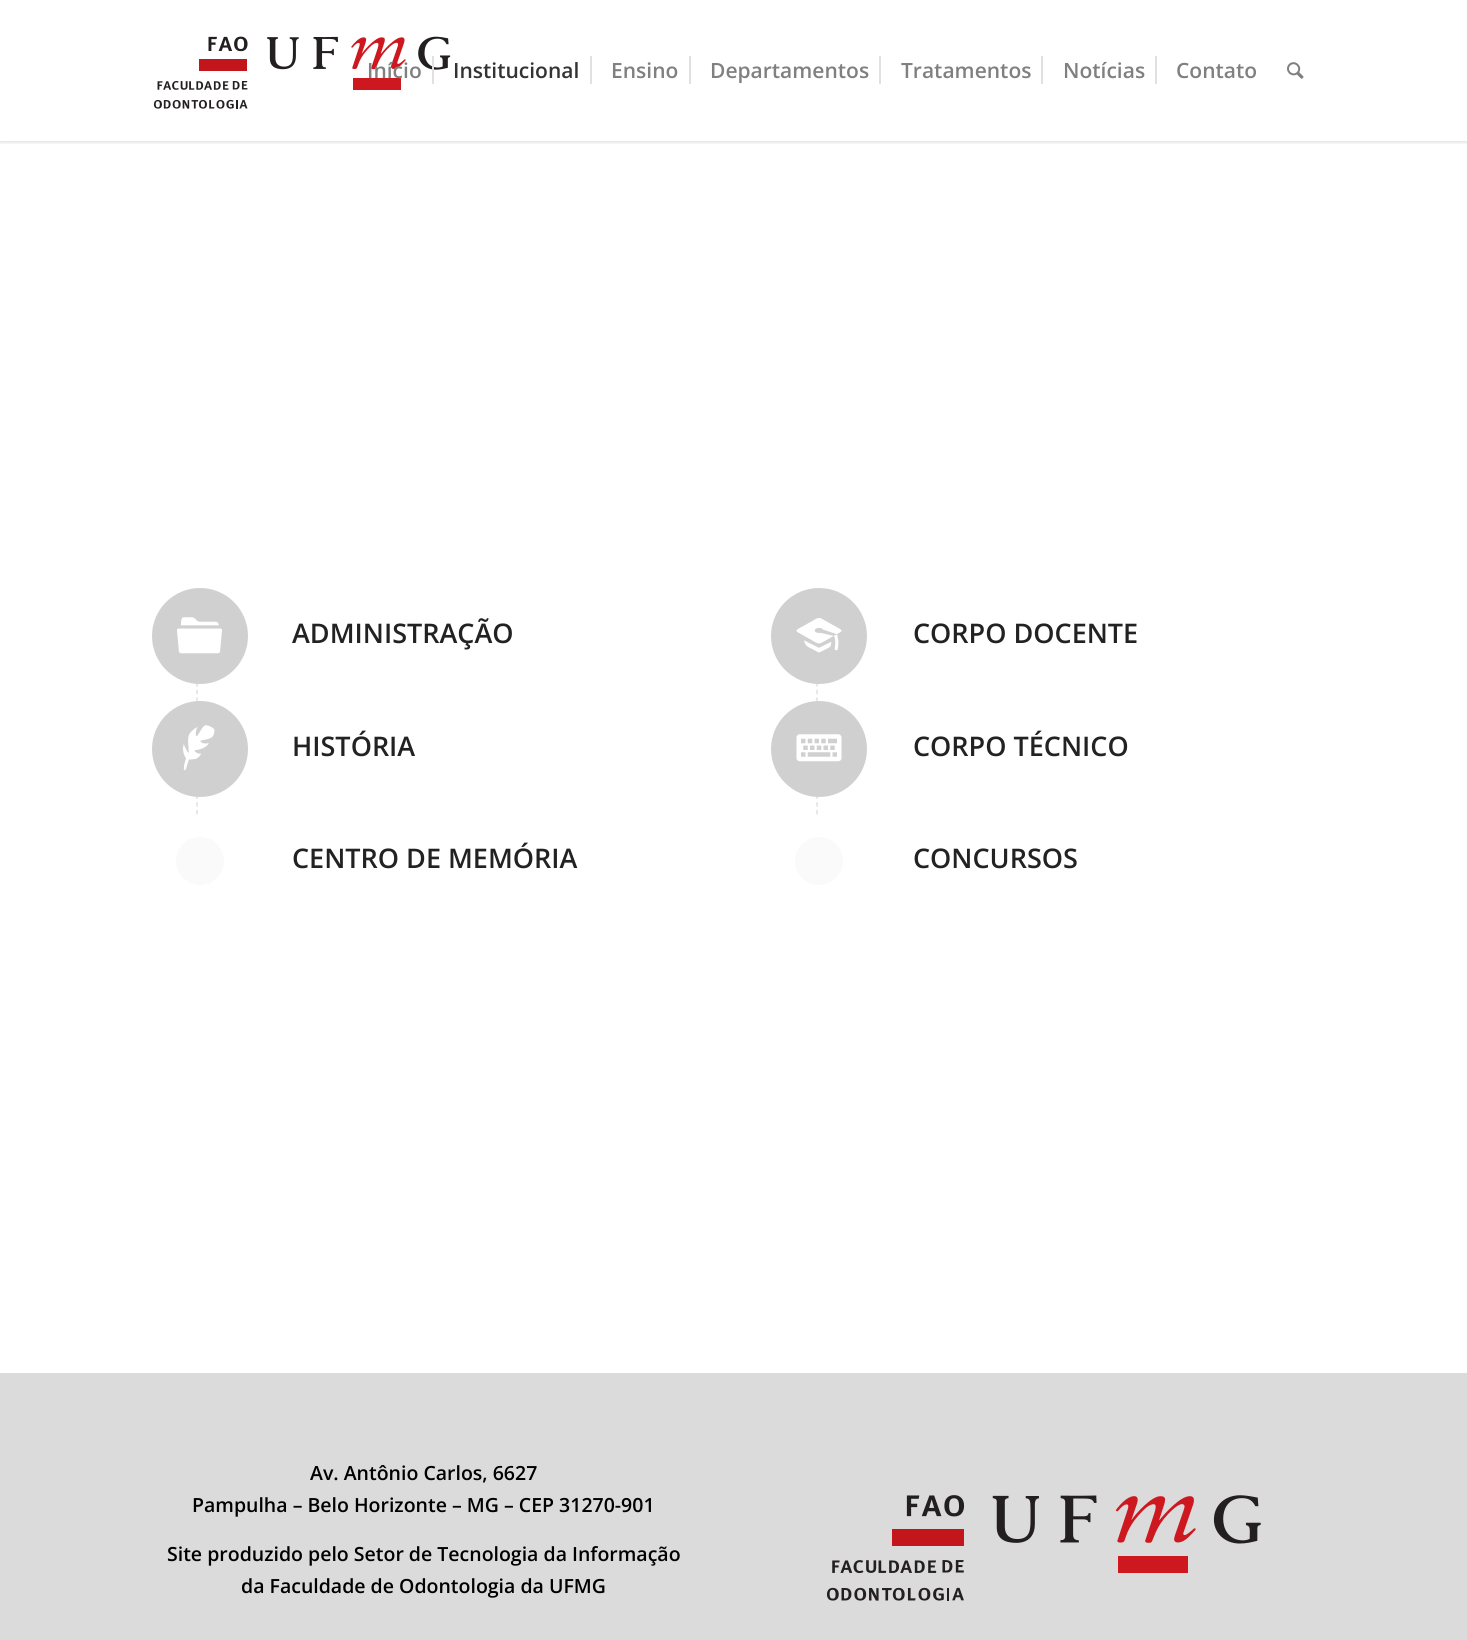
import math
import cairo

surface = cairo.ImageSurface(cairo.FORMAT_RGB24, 1467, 1640)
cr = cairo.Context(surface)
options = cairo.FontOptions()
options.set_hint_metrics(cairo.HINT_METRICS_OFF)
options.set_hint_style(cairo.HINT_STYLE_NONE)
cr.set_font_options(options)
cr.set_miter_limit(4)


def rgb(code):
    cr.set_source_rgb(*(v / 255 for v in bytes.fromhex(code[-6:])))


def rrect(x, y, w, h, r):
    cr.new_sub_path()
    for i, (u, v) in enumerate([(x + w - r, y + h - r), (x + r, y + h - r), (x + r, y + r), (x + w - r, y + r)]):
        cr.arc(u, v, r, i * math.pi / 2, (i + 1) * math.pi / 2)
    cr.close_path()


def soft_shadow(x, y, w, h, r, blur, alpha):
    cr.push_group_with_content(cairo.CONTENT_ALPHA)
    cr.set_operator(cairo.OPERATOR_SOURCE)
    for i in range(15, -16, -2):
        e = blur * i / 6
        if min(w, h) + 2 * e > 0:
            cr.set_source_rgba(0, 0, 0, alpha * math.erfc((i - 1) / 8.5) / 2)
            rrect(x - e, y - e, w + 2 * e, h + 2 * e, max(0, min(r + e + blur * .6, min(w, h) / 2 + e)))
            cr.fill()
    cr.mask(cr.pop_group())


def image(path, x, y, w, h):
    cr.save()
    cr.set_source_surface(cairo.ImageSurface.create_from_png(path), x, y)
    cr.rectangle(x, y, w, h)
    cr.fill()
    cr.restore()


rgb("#ffffff")
cr.paint()
cr.save()
cr.rectangle(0, 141, 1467, 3)
cr.clip()
rgb("#000000")
soft_shadow(-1, -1, 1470, 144, 0, 1.5, 0.1)
cr.restore()
image("img/1.png", 153, 36, 298, 73)
for x, y, w, h, color in [
    (432, 56, 2, 28, "#e1e1e1"),
    (590, 56, 2, 28, "#e1e1e1"),
    (689, 56, 2, 28, "#e1e1e1"),
    (879, 56, 2, 28, "#e1e1e1"),
    (1041, 56, 2, 28, "#e1e1e1"),
    (1155, 56, 2, 28, "#e1e1e1"),
]:
    rgb(color)
    cr.rectangle(x, y, w, h)
    cr.fill()
image("img/2.png", 1287, 62, 17, 17)
cr.new_path()
cr.move_to(197, 589.5)
cr.line_to(197, 702)
cr.set_line_width(1.5)
cr.set_dash([4.5, 3.21])
cr.stroke()
rgb("#d0d0d0")
cr.arc(200, 636, 48, 0, 2 * math.pi)
cr.fill()
image("img/3.png", 177, 617, 45, 37)
cr.new_path()
cr.move_to(197, 702)
cr.line_to(197, 814.5)
rgb("#e1e1e1")
cr.stroke()
rgb("#d0d0d0")
cr.arc(200, 749, 48, 0, 2 * math.pi)
cr.fill()
image("img/4.png", 183, 725, 32, 46)
rgb("#fafafa")
cr.arc(200, 861, 24, 0, 2 * math.pi)
cr.fill()
cr.new_path()
cr.move_to(817, 589.5)
cr.line_to(817, 702)
rgb("#e1e1e1")
cr.stroke()
rgb("#d0d0d0")
cr.arc(819, 636, 48, 0, 2 * math.pi)
cr.fill()
image("img/5.png", 796, 618, 46, 35)
cr.new_path()
cr.move_to(817, 702)
cr.line_to(817, 814.5)
rgb("#e1e1e1")
cr.stroke()
rgb("#d0d0d0")
cr.arc(819, 749, 48, 0, 2 * math.pi)
cr.fill()
image("img/6.png", 796, 734, 46, 28)
rgb("#fafafa")
cr.arc(819, 861, 24, 0, 2 * math.pi)
cr.fill()
rgb("#dbdbdb")
cr.rectangle(0, 1373, 1467, 267)
cr.fill()
image("img/7.png", 826, 1495, 435, 106)
cr.select_font_face("Open Sans SemiBold")
cr.set_font_size(21)
rgb("#808080")
cr.move_to(367, 78)
cr.show_text("Início")
rgb("#333333")
cr.move_to(453, 78)
cr.show_text("Institucional")
rgb("#808080")
for x, y, s in [
    (611, 78, "Ensino"),
    (710, 78, "Departamentos"),
    (901, 78, "Tratamentos"),
    (1063, 78, "Notícias"),
    (1176, 78, "Contato"),
]:
    cr.move_to(x, y)
    cr.show_text(s)
cr.set_font_size(27)
rgb("#222222")
for x, y, s in [
    (292, 643, "ADMINISTRAÇÃO"),
    (292, 756, "HISTÓRIA"),
    (292, 868, "CENTRO DE MEMÓRIA"),
    (913, 643, "CORPO DOCENTE"),
    (913, 756, "CORPO TÉCNICO"),
    (913, 868, "CONCURSOS"),
]:
    cr.move_to(x, y)
    cr.show_text(s)
cr.set_font_size(19.5)
rgb("#000000")
for x, y, s in [
    (310, 1480, "Av. Antônio Carlos, 6627"),
    (192, 1512, "Pampulha – Belo Horizonte – MG – CEP 31270-901"),
    (167, 1561, "Site produzido pelo Setor de Tecnologia da Informação"),
    (241, 1593, "da Faculdade de Odontologia da UFMG"),
]:
    cr.move_to(x, y)
    cr.show_text(s)
surface.write_to_png("page.png")
